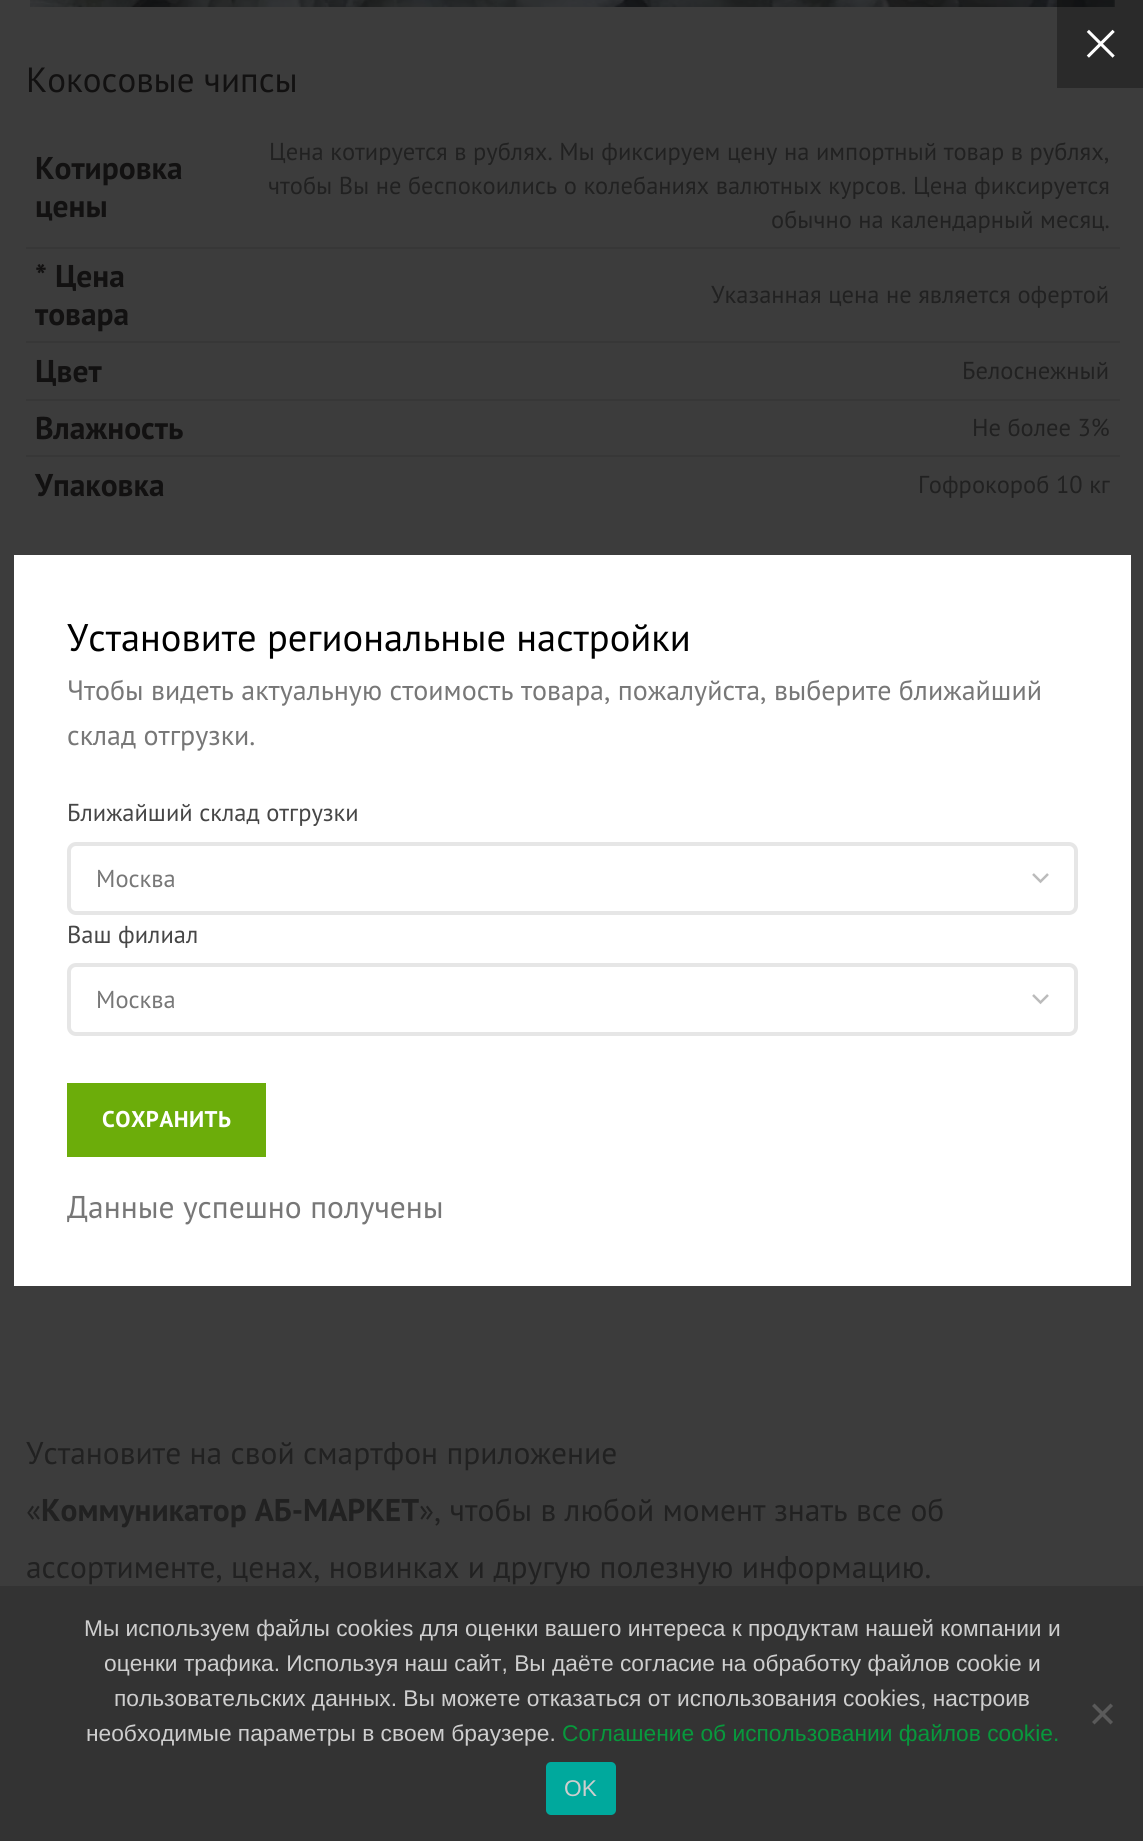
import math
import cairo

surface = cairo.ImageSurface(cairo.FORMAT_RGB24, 1143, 1841)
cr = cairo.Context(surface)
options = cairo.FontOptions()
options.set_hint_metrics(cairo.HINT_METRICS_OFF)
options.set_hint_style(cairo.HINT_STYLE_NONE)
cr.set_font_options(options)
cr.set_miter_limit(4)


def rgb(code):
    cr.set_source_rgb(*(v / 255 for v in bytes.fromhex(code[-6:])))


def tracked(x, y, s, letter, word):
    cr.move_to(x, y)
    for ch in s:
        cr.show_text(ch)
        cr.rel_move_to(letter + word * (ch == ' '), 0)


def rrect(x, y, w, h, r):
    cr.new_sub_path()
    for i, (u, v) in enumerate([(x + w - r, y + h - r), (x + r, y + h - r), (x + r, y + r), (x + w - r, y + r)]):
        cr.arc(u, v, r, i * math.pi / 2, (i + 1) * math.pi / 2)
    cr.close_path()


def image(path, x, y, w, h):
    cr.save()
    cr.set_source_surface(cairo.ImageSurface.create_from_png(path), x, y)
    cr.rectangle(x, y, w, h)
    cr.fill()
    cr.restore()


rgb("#3c3c3c")
cr.paint()
image("img/1.png", 30, 0, 1085, 7)
rgb("#373737")
cr.rectangle(26, 247, 1094, 2)
cr.rectangle(26, 341, 1094, 2)
cr.rectangle(26, 399, 1094, 2)
cr.rectangle(26, 455, 1094, 2)
cr.fill()
rgb("#ffffff")
cr.rectangle(14, 555, 1117, 731)
cr.fill()
cr.set_source_rgba(0, 0, 0, 0.3)
cr.rectangle(1057, 0, 86, 88)
cr.fill()
image("img/2.png", 1086, 29, 29, 29)
cr.new_path()
cr.move_to(1033, 874)
cr.line_to(1040.5, 881.5)
cr.line_to(1048, 874)
rgb("#bbbbbb")
cr.set_line_width(2.5)
cr.stroke()
rrect(69, 844, 1007, 69, 7)
rgb("#e6e6e6")
cr.set_line_width(4)
cr.stroke()
cr.new_path()
cr.move_to(1033, 995)
cr.line_to(1040.5, 1002.5)
cr.line_to(1048, 995)
rgb("#bbbbbb")
cr.set_line_width(2.5)
cr.stroke()
rrect(69, 965, 1007, 69, 7)
rgb("#e6e6e6")
cr.set_line_width(4)
cr.stroke()
rgb("#6cad0a")
cr.rectangle(67, 1083, 199, 74)
cr.fill()
rgb("#333333")
cr.rectangle(0, 1586, 1143, 255)
cr.fill()
rgb("#5a5a5a")
cr.new_path()
cr.move_to(1110.5, 1703.5)
cr.line_to(1113, 1706)
cr.line_to(1094.5, 1724.5)
cr.line_to(1092, 1722)
cr.close_path()
cr.fill()
cr.new_path()
cr.move_to(1092, 1706)
cr.line_to(1094.5, 1703.5)
cr.line_to(1113, 1722)
cr.line_to(1110.5, 1724.5)
cr.close_path()
cr.fill()
rgb("#00a99d")
rrect(546, 1762, 70, 53, 5)
cr.fill()
cr.select_font_face("PT Sans")
cr.set_font_size(35)
rgb("#121111")
cr.move_to(26, 92)
cr.show_text("Кокосовые чипсы")
cr.select_font_face("PT Sans", cairo.FONT_SLANT_NORMAL, cairo.FONT_WEIGHT_BOLD)
cr.set_font_size(31.5)
cr.move_to(35, 179)
cr.show_text("Котировка")
cr.move_to(35, 217)
cr.show_text("цены")
cr.select_font_face("PT Sans")
cr.set_font_size(24.5)
rgb("#212121")
for x, y, s in [
    (269, 160, "Цена котируется в рублях. Мы фиксируем цену на импортный товар в рублях,"),
    (268, 194, "чтобы Вы не беспокоились о колебаниях валютных курсов. Цена фиксируется"),
    (771, 228, "обычно на календарный месяц."),
]:
    cr.move_to(x, y)
    cr.show_text(s)
cr.select_font_face("PT Sans", cairo.FONT_SLANT_NORMAL, cairo.FONT_WEIGHT_BOLD)
cr.set_font_size(31.5)
rgb("#121111")
cr.move_to(35, 287)
cr.show_text("* Цена")
cr.move_to(35, 325)
cr.show_text("товара")
cr.select_font_face("PT Sans")
cr.set_font_size(24.5)
rgb("#212121")
cr.move_to(711, 303)
cr.show_text("Указанная цена не является офертой")
cr.select_font_face("PT Sans", cairo.FONT_SLANT_NORMAL, cairo.FONT_WEIGHT_BOLD)
cr.set_font_size(31.5)
rgb("#121111")
cr.move_to(35, 382)
cr.show_text("Цвет")
cr.select_font_face("PT Sans")
cr.set_font_size(24.5)
rgb("#212121")
cr.move_to(962, 379)
cr.show_text("Белоснежный")
cr.select_font_face("PT Sans", cairo.FONT_SLANT_NORMAL, cairo.FONT_WEIGHT_BOLD)
cr.set_font_size(31.5)
rgb("#121111")
cr.move_to(35, 439)
cr.show_text("Влажность")
cr.select_font_face("PT Sans")
cr.set_font_size(24.5)
rgb("#212121")
cr.move_to(972, 436)
cr.show_text("Не более 3%")
cr.select_font_face("PT Sans", cairo.FONT_SLANT_NORMAL, cairo.FONT_WEIGHT_BOLD)
cr.set_font_size(31.5)
rgb("#121111")
cr.move_to(35, 496)
cr.show_text("Упаковка")
cr.select_font_face("PT Sans")
cr.set_font_size(24.5)
rgb("#212121")
cr.move_to(918, 493)
cr.show_text("Гофрокороб 10 кг")
cr.set_font_size(31.5)
cr.move_to(26, 1464)
cr.show_text("Установите на свой смартфон приложение")
cr.move_to(26, 1521)
cr.show_text("«")
cr.select_font_face("PT Sans", cairo.FONT_SLANT_NORMAL, cairo.FONT_WEIGHT_BOLD)
cr.move_to(41, 1521)
cr.show_text("Коммуникатор АБ-МАРКЕТ")
cr.select_font_face("PT Sans")
cr.move_to(419, 1521)
cr.show_text("», чтобы в любой момент знать все об")
cr.move_to(26, 1578)
cr.show_text("ассортименте, ценах, новинках и другую полезную информацию.")
cr.set_font_size(38.5)
rgb("#000000")
cr.move_to(67, 651)
cr.show_text("Установите региональные настройки")
cr.set_font_size(28)
rgb("#777777")
cr.move_to(67, 700)
cr.show_text("Чтобы видеть актуальную стоимость товара, пожалуйста, выберите ближайший")
cr.move_to(67, 745)
cr.show_text("склад отгрузки.")
cr.set_font_size(24.5)
rgb("#464646")
cr.move_to(67, 821)
cr.show_text("Ближайший склад отгрузки")
rgb("#777777")
cr.move_to(96, 887)
cr.show_text("Москва")
rgb("#464646")
cr.move_to(67, 943)
cr.show_text("Ваш филиал")
rgb("#777777")
cr.move_to(96, 1008)
cr.show_text("Москва")
cr.select_font_face("PT Sans", cairo.FONT_SLANT_NORMAL, cairo.FONT_WEIGHT_BOLD)
cr.set_font_size(22.75)
rgb("#ffffff")
tracked(102, 1127, "СОХРАНИТЬ", 0.5, 0)
cr.select_font_face("PT Sans")
cr.set_font_size(31.5)
rgb("#777777")
cr.move_to(67, 1218)
cr.show_text("Данные успешно получены")
cr.select_font_face("Liberation Sans")
cr.set_font_size(22.75)
rgb("#cecece")
for x, y, s in [
    (84, 1636, "Мы используем файлы cookies для оценки вашего интереса к продуктам нашей компании и"),
    (104, 1671, "оценки трафика. Используя наш сайт, Вы даёте согласие на обработку файлов cookie и"),
    (114, 1706, "пользовательских данных. Вы можете отказаться от использования cookies, настроив"),
    (86, 1741, "необходимые параметры в своем браузере."),
]:
    cr.move_to(x, y)
    cr.show_text(s)
rgb("#07993c")
cr.move_to(562, 1741)
cr.show_text("Соглашение об использовании файлов cookie.")
rgb("#cecece")
cr.move_to(564, 1796)
cr.show_text("OK")
surface.write_to_png("page.png")
